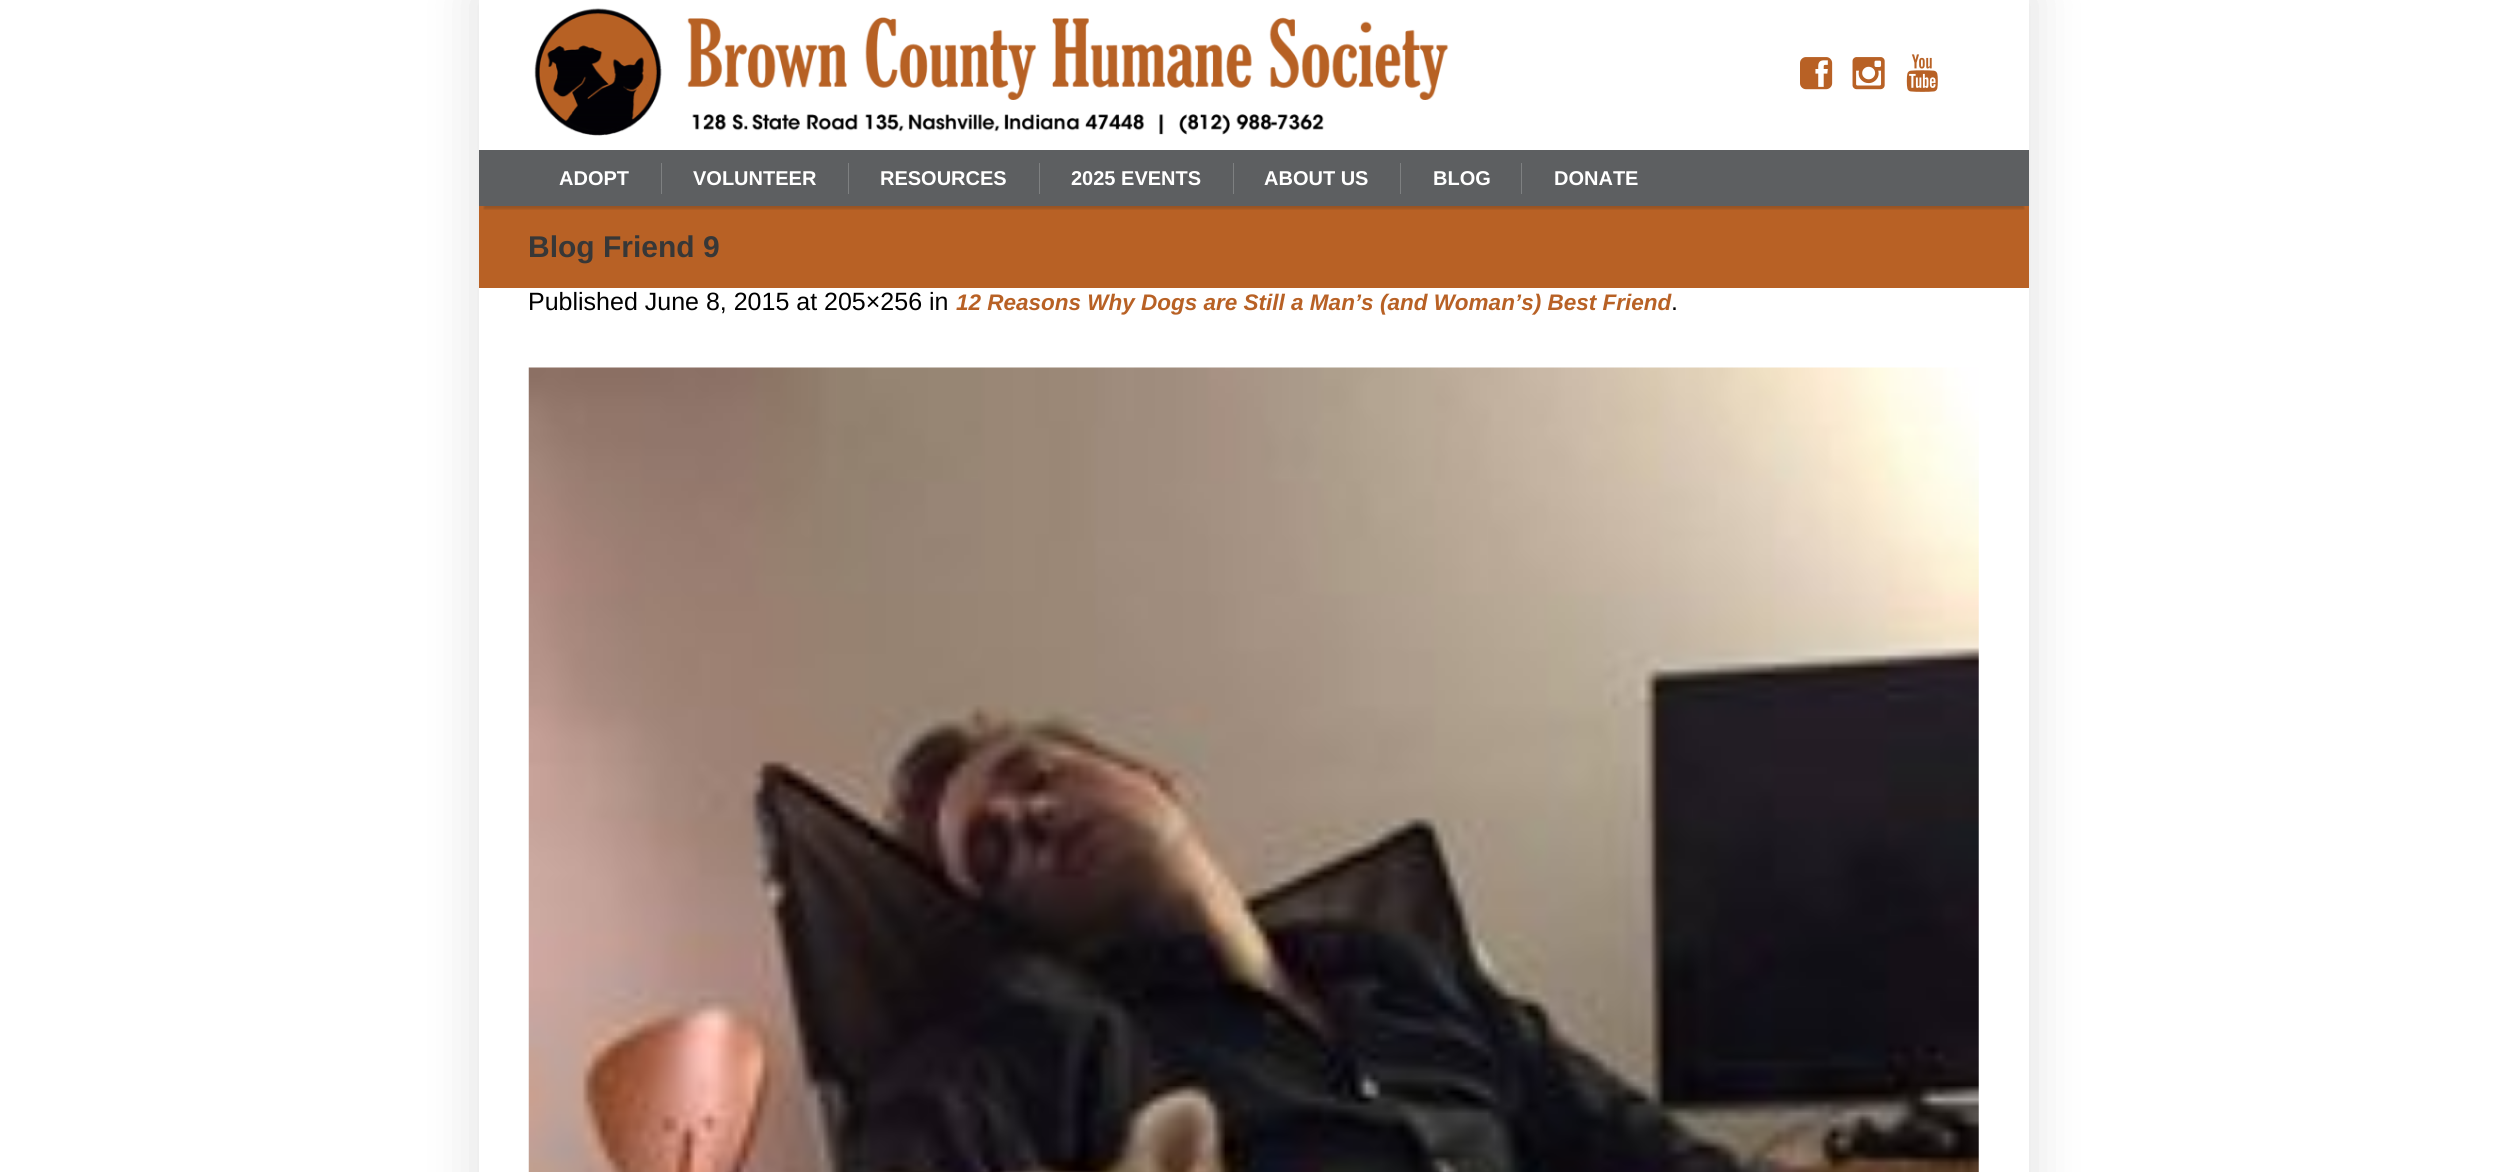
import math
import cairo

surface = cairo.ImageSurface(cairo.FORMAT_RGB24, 2506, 1172)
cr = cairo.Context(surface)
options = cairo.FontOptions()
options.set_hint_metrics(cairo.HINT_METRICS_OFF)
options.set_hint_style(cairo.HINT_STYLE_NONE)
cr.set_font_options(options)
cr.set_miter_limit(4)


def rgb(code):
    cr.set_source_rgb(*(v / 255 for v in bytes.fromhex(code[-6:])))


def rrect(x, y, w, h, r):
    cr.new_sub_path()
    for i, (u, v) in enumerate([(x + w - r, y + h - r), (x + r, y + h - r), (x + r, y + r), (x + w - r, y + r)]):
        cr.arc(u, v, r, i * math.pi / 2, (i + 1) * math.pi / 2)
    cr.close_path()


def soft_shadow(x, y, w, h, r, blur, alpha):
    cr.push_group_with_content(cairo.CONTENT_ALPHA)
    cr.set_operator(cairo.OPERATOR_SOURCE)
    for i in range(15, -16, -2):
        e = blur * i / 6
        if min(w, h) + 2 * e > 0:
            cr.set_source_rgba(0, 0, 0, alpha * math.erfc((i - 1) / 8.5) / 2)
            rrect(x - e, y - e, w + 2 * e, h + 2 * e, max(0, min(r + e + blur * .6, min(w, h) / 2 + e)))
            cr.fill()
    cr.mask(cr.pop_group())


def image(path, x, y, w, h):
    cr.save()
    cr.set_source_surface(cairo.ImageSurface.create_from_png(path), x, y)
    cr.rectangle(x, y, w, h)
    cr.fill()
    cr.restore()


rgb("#ffffff")
cr.paint()
cr.save()
cr.set_fill_rule(cairo.FILL_RULE_EVEN_ODD)
cr.new_path()
cr.move_to(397, 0)
cr.line_to(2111, 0)
cr.line_to(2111, 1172)
cr.line_to(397, 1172)
cr.close_path()
cr.move_to(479, 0)
cr.line_to(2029, 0)
cr.line_to(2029, 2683)
cr.line_to(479, 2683)
cr.close_path()
cr.clip()
rgb("#000000")
soft_shadow(473, -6, 1562, 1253, 0, 25, 0.11)
cr.restore()
rgb("#b86125")
cr.rectangle(479, 206, 1550, 82)
cr.fill()
cr.save()
cr.rectangle(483, 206, 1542, 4)
cr.clip()
rgb("#191c1e")
soft_shadow(484, 13, 1540, 196, 0, 1, 0.2)
cr.restore()
cr.set_source_rgba(1, 1, 1, 0.7)
cr.rectangle(2028, 25, 1, 125)
cr.fill()
image("img/1.png", 534, 8, 915, 128)
image("img/2.png", 1800, 57, 33, 33)
image("img/3.png", 1852, 57, 33, 33)
image("img/4.png", 1906, 54, 32, 38)
cr.set_source_rgba(0.098, 0.11, 0.118, 0.7)
cr.rectangle(479, 150, 1550, 56)
cr.fill()
rgb("#7e8081")
cr.rectangle(661, 163, 1, 31)
cr.rectangle(848, 163, 1, 31)
cr.rectangle(1039, 163, 1, 31)
cr.rectangle(1233, 163, 1, 31)
cr.rectangle(1400, 163, 1, 31)
cr.rectangle(1521, 163, 1, 31)
cr.fill()
rgb("#ffffff")
cr.rectangle(2028, 288, 1, 884)
cr.fill()
image("img/5.png", 528, 367, 1451, 805)
cr.select_font_face("Liberation Sans", cairo.FONT_SLANT_NORMAL, cairo.FONT_WEIGHT_BOLD)
cr.set_font_size(20)
for x, y, s in [
    (559, 185, "ADOPT"),
    (693, 185, "VOLUNTEER"),
    (880, 185, "RESOURCES"),
    (1071, 185, "2025 EVENTS"),
    (1264, 185, "ABOUT US"),
    (1433, 185, "BLOG"),
    (1554, 185, "DONATE"),
]:
    cr.move_to(x, y)
    cr.show_text(s)
cr.set_font_size(30)
rgb("#373737")
cr.move_to(528, 257)
cr.show_text("Blog Friend 9")
cr.select_font_face("Liberation Sans")
cr.set_font_size(25)
rgb("#000000")
cr.move_to(528, 310)
cr.show_text("Published June 8, 2015 at 205×256 in")
cr.select_font_face("Liberation Sans", cairo.FONT_SLANT_ITALIC, cairo.FONT_WEIGHT_BOLD)
cr.set_font_size(22.5)
rgb("#b86125")
cr.move_to(956, 310)
cr.show_text("12 Reasons Why Dogs are Still a Man’s (and Woman’s) Best Friend")
cr.select_font_face("Liberation Sans")
cr.set_font_size(25)
rgb("#000000")
cr.move_to(1671, 310)
cr.show_text(".")
surface.write_to_png("page.png")
